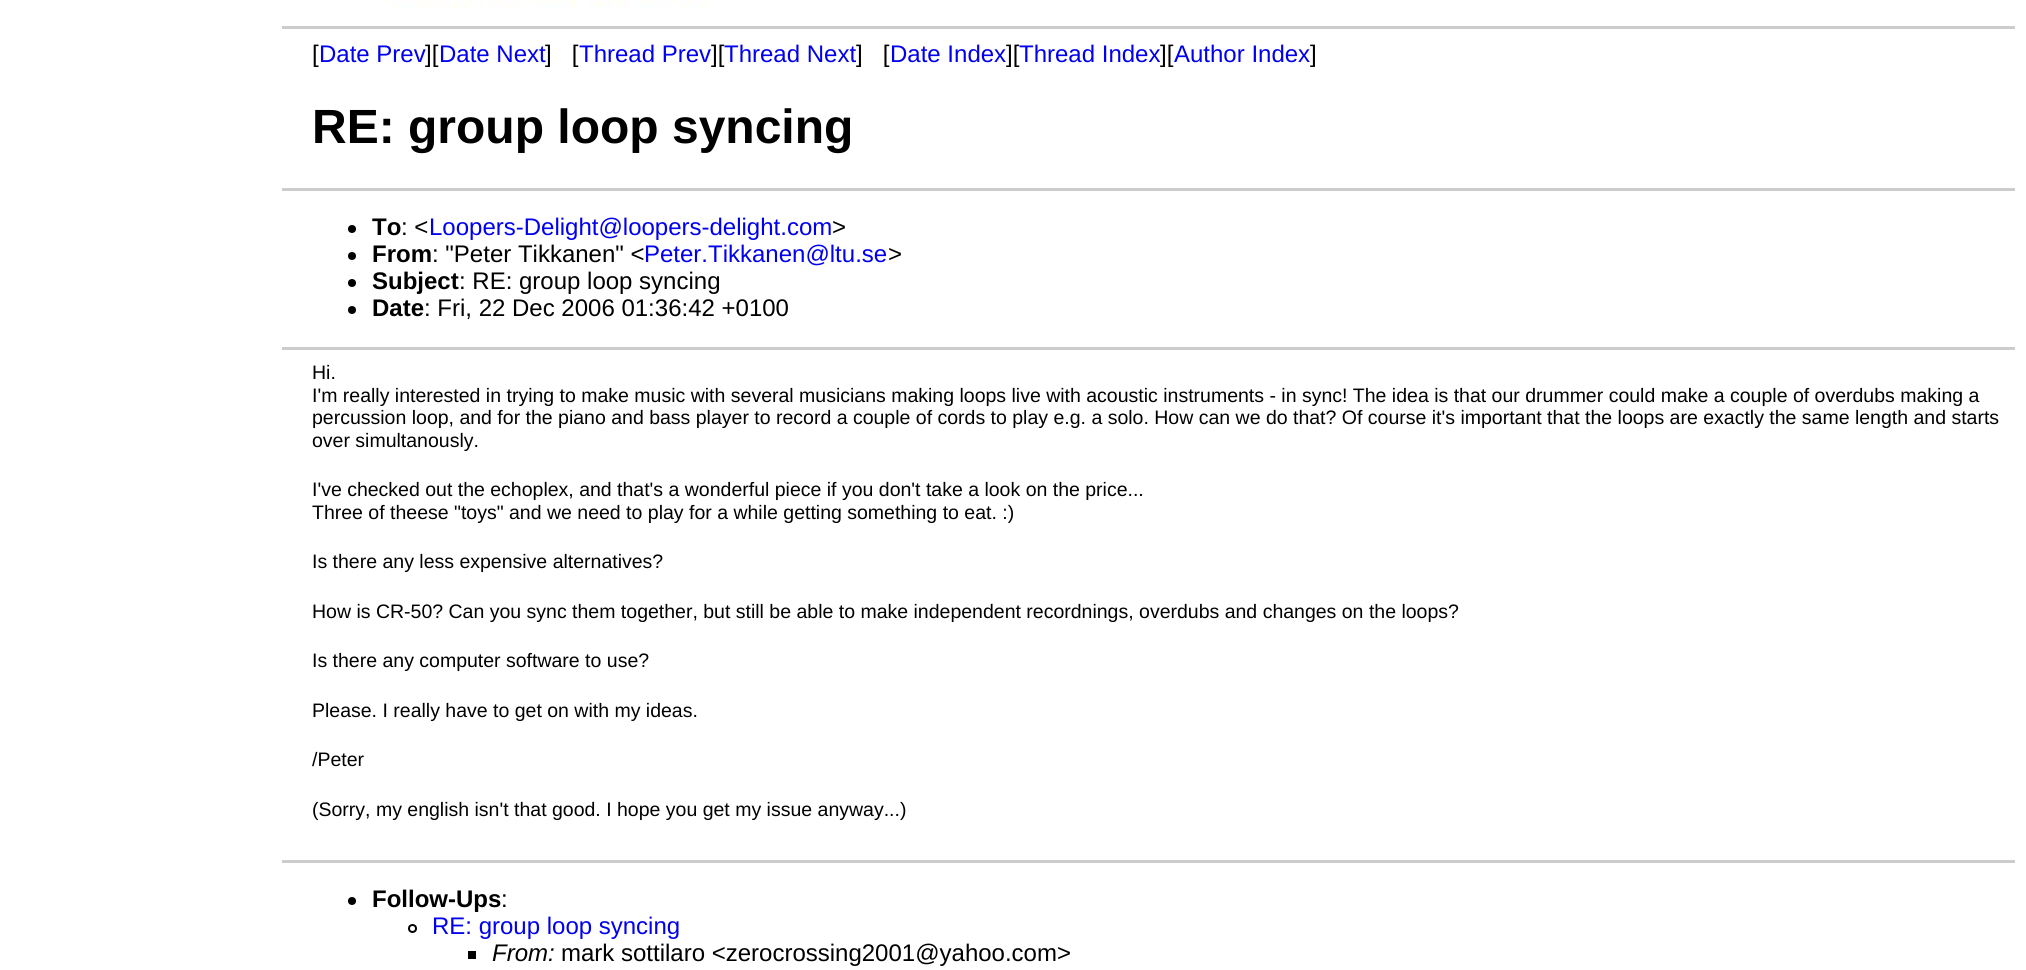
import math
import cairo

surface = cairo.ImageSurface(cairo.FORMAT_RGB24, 2026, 970)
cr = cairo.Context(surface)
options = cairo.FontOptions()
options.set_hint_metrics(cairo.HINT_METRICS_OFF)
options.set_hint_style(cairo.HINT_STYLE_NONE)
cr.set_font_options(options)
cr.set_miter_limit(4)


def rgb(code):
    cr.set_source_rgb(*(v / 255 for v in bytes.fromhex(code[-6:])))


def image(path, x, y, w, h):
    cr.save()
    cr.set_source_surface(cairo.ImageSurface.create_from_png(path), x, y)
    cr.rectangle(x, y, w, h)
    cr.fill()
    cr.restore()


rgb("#ffffff")
cr.paint()
image("img/1.png", 385, 0, 331, 9)
rgb("#cccccc")
cr.rectangle(282, 26, 1733, 3)
cr.fill()
cr.rectangle(282, 188, 1733, 3)
cr.fill()
rgb("#000000")
cr.arc(352, 229, 4, 0, 2 * math.pi)
cr.fill()
cr.arc(352, 256, 4, 0, 2 * math.pi)
cr.fill()
cr.arc(352, 283, 4, 0, 2 * math.pi)
cr.fill()
cr.arc(352, 310, 4, 0, 2 * math.pi)
cr.fill()
rgb("#cccccc")
cr.rectangle(282, 347, 1733, 3)
cr.fill()
cr.rectangle(282, 860, 1733, 3)
cr.fill()
rgb("#000000")
cr.arc(352, 901, 4, 0, 2 * math.pi)
cr.fill()
cr.arc(412.5, 928.5, 3.5, 0, 2 * math.pi)
cr.stroke()
cr.rectangle(468, 951, 8, 8)
cr.fill()
cr.select_font_face("Liberation Sans")
cr.set_font_size(24)
cr.move_to(312, 62)
cr.show_text("[")
rgb("#0000ee")
cr.move_to(319, 62)
cr.show_text("Date Prev")
rgb("#000000")
cr.move_to(425, 62)
cr.show_text("][")
rgb("#0000ee")
cr.move_to(439, 62)
cr.show_text("Date Next")
rgb("#000000")
cr.move_to(545, 62)
cr.show_text("]   [")
rgb("#0000ee")
cr.move_to(579, 62)
cr.show_text("Thread Prev")
rgb("#000000")
cr.move_to(711, 62)
cr.show_text("][")
rgb("#0000ee")
cr.move_to(724, 62)
cr.show_text("Thread Next")
rgb("#000000")
cr.move_to(856, 62)
cr.show_text("]   [")
rgb("#0000ee")
cr.move_to(890, 62)
cr.show_text("Date Index")
rgb("#000000")
cr.move_to(1006, 62)
cr.show_text("][")
rgb("#0000ee")
cr.move_to(1019, 62)
cr.show_text("Thread Index")
rgb("#000000")
cr.move_to(1160, 62)
cr.show_text("][")
rgb("#0000ee")
cr.move_to(1174, 62)
cr.show_text("Author Index")
rgb("#000000")
cr.move_to(1310, 62)
cr.show_text("]")
cr.select_font_face("Liberation Sans", cairo.FONT_SLANT_NORMAL, cairo.FONT_WEIGHT_BOLD)
cr.set_font_size(48)
cr.move_to(312, 143)
cr.show_text("RE: group loop syncing")
cr.set_font_size(24)
cr.move_to(372, 235)
cr.show_text("To")
cr.select_font_face("Liberation Sans")
cr.move_to(401, 235)
cr.show_text(": <")
rgb("#0000ee")
cr.move_to(429, 235)
cr.show_text("Loopers-Delight@loopers-delight.com")
rgb("#000000")
cr.move_to(832, 235)
cr.show_text(">")
cr.select_font_face("Liberation Sans", cairo.FONT_SLANT_NORMAL, cairo.FONT_WEIGHT_BOLD)
cr.move_to(372, 262)
cr.show_text("From")
cr.select_font_face("Liberation Sans")
cr.move_to(432, 262)
cr.show_text(": \"Peter Tikkanen\" <")
rgb("#0000ee")
cr.move_to(644, 262)
cr.show_text("Peter.Tikkanen@ltu.se")
rgb("#000000")
cr.move_to(888, 262)
cr.show_text(">")
cr.select_font_face("Liberation Sans", cairo.FONT_SLANT_NORMAL, cairo.FONT_WEIGHT_BOLD)
cr.move_to(372, 289)
cr.show_text("Subject")
cr.select_font_face("Liberation Sans")
cr.move_to(459, 289)
cr.show_text(": RE: group loop syncing")
cr.select_font_face("Liberation Sans", cairo.FONT_SLANT_NORMAL, cairo.FONT_WEIGHT_BOLD)
cr.move_to(372, 316)
cr.show_text("Date")
cr.select_font_face("Liberation Sans")
cr.move_to(424, 316)
cr.show_text(": Fri, 22 Dec 2006 01:36:42 +0100")
cr.set_font_size(19.5)
for x, y, s in [
    (312, 379, "Hi."),
    (312, 402, "I'm really interested in trying to make music with several musicians making loops live with acoustic instruments - in sync! The idea is that our drummer could make a couple of overdubs making a"),
    (312, 424, "percussion loop, and for the piano and bass player to record a couple of cords to play e.g. a solo. How can we do that? Of course it's important that the loops are exactly the same length and starts"),
    (312, 447, "over simultanously."),
    (312, 496, "I've checked out the echoplex, and that's a wonderful piece if you don't take a look on the price..."),
    (312, 519, "Three of theese \"toys\" and we need to play for a while getting something to eat. :)"),
    (312, 568, "Is there any less expensive alternatives?"),
    (312, 618, "How is CR-50? Can you sync them together, but still be able to make independent recordnings, overdubs and changes on the loops?"),
    (312, 667, "Is there any computer software to use?"),
    (312, 717, "Please. I really have to get on with my ideas."),
    (312, 766, "/Peter"),
    (312, 816, "(Sorry, my english isn't that good. I hope you get my issue anyway...)"),
]:
    cr.move_to(x, y)
    cr.show_text(s)
cr.select_font_face("Liberation Sans", cairo.FONT_SLANT_NORMAL, cairo.FONT_WEIGHT_BOLD)
cr.set_font_size(24)
cr.move_to(372, 907)
cr.show_text("Follow-Ups")
cr.select_font_face("Liberation Sans")
cr.move_to(501, 907)
cr.show_text(":")
rgb("#0000ee")
cr.move_to(432, 934)
cr.show_text("RE: group loop syncing")
cr.select_font_face("Liberation Sans", cairo.FONT_SLANT_ITALIC)
rgb("#000000")
cr.move_to(492, 961)
cr.show_text("From:")
cr.select_font_face("Liberation Sans")
cr.move_to(561, 961)
cr.show_text("mark sottilaro <zerocrossing2001@yahoo.com>")
surface.write_to_png("page.png")
